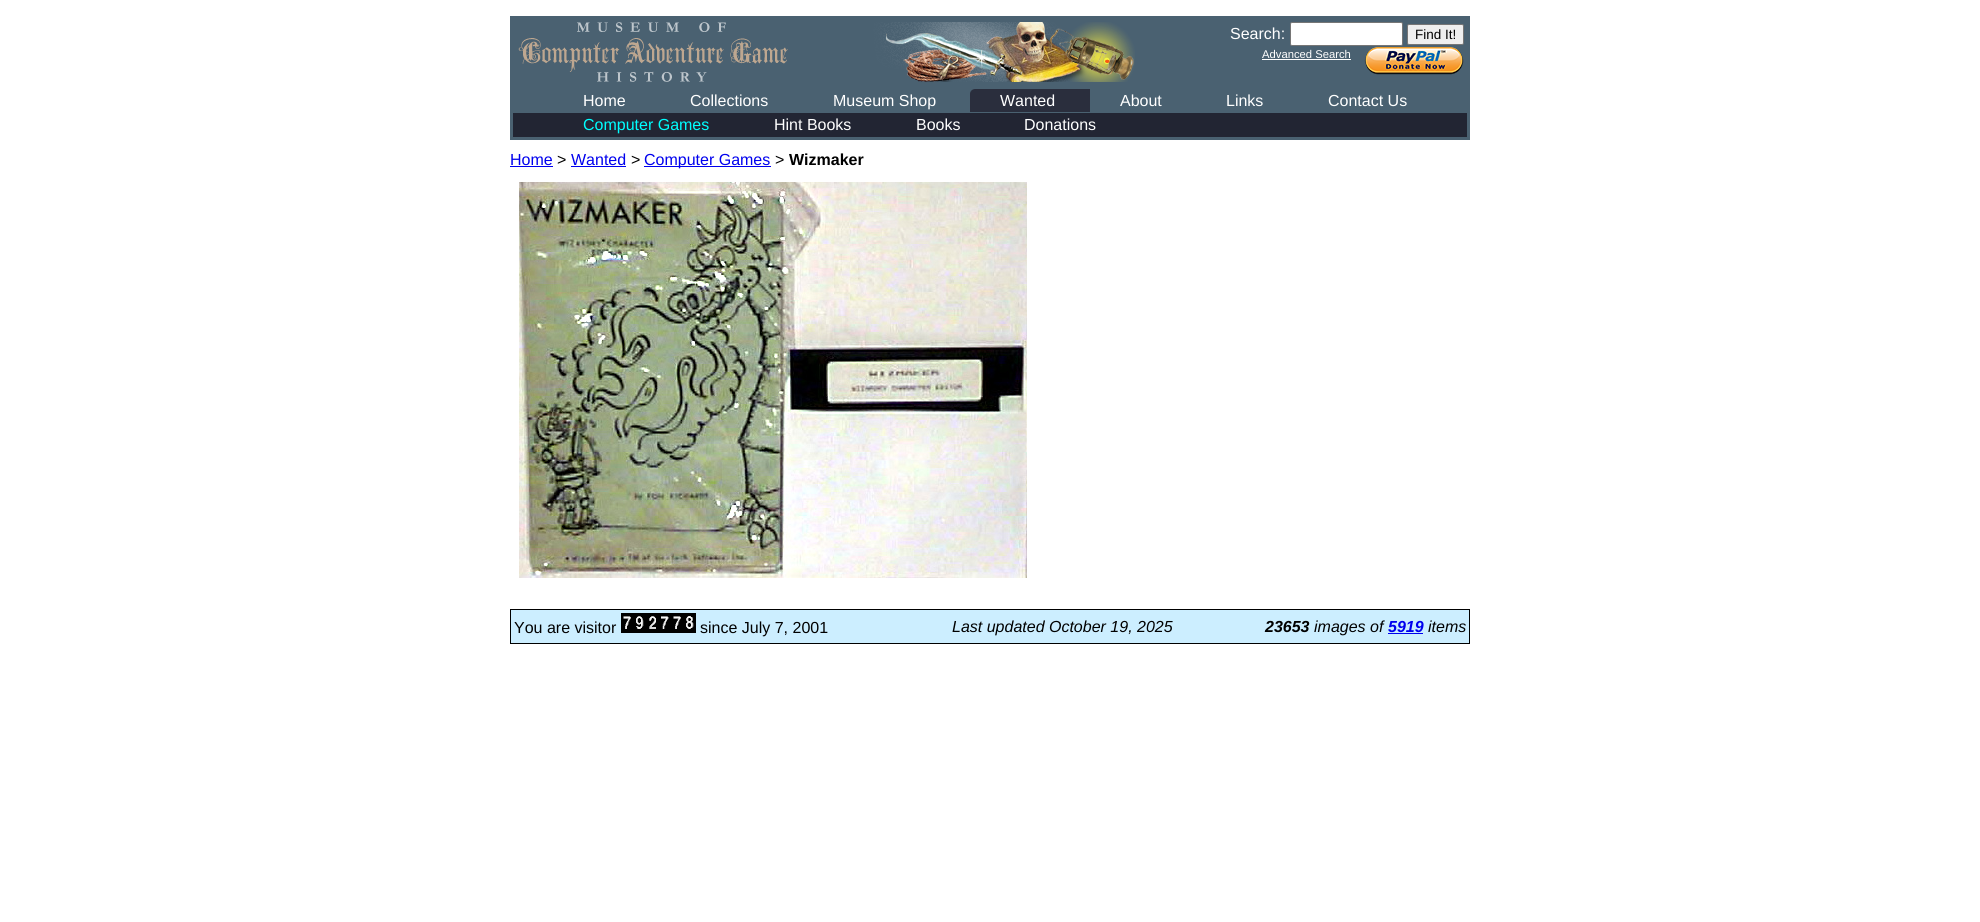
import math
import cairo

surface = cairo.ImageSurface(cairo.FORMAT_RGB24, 1980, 922)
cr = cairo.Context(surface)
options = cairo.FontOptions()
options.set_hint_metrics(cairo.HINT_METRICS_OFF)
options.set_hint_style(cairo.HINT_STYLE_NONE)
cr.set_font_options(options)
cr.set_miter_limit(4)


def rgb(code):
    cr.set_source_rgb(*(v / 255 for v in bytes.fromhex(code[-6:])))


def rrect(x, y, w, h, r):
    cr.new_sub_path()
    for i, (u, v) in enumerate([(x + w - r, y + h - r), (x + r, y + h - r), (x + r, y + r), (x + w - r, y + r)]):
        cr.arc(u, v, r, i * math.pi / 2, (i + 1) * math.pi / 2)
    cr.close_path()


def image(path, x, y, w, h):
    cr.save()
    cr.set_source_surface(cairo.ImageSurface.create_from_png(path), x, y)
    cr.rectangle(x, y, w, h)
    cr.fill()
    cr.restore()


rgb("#ffffff")
cr.paint()
rgb("#4a6171")
cr.rectangle(510, 16, 960, 124)
cr.fill()
image("img/1.png", 518, 22, 617, 60)
rgb("#ffffff")
rrect(1290.5, 22.5, 112, 23, 1.5)
cr.fill_preserve()
rgb("#767676")
cr.set_line_width(1)
cr.stroke()
rgb("#efefef")
rrect(1407.5, 24.5, 56, 20, 1.5)
cr.fill_preserve()
rgb("#767676")
cr.stroke()
rgb("#ffffff")
cr.rectangle(1262, 59, 89, 1)
cr.fill()
image("img/2.png", 1364, 47, 100, 28)
image("img/3.png", 970, 89, 120, 23)
for x, y, w, h, color in [
    (513, 113, 954, 24, "#222533"),
    (510, 166, 43, 1, "#0000ee"),
    (571, 166, 55, 1, "#0000ee"),
    (644, 166, 127, 1, "#0000ee"),
]:
    rgb(color)
    cr.rectangle(x, y, w, h)
    cr.fill()
image("img/4.png", 519, 182, 508, 396)
rgb("#cceeff")
cr.rectangle(510.5, 609.5, 959, 34)
cr.fill_preserve()
rgb("#000000")
cr.stroke()
image("img/5.png", 621, 613, 75, 20)
rgb("#0000ee")
cr.rectangle(1388, 633, 35, 1)
cr.fill()
cr.select_font_face("Liberation Sans")
cr.set_font_size(16)
rgb("#ffffff")
cr.move_to(1230, 39)
cr.show_text("Search:")
cr.set_font_size(13.5)
rgb("#000000")
cr.move_to(1415, 39)
cr.show_text("Find It!")
cr.set_font_size(11.25)
rgb("#ffffff")
cr.move_to(1262, 58)
cr.show_text("Advanced Search")
cr.set_font_size(16)
for x, y, s in [
    (690, 106, "Collections"),
    (833, 106, "Museum Shop"),
    (583, 106, "Home"),
    (1000, 106, "Wanted"),
    (1120, 106, "About"),
    (1226, 106, "Links"),
    (1328, 106, "Contact Us"),
]:
    cr.move_to(x, y)
    cr.show_text(s)
rgb("#00ffff")
cr.move_to(583, 130)
cr.show_text("Computer Games")
rgb("#ffffff")
for x, y, s in [
    (774, 130, "Hint Books"),
    (916, 130, "Books"),
    (1024, 130, "Donations"),
]:
    cr.move_to(x, y)
    cr.show_text(s)
rgb("#0000ee")
cr.move_to(510, 165)
cr.show_text("Home")
rgb("#000000")
cr.move_to(557, 165)
cr.show_text(">")
rgb("#0000ee")
cr.move_to(571, 165)
cr.show_text("Wanted")
rgb("#000000")
cr.move_to(631, 165)
cr.show_text(">")
rgb("#0000ee")
cr.move_to(644, 165)
cr.show_text("Computer Games")
rgb("#000000")
cr.move_to(775, 165)
cr.show_text(">")
cr.select_font_face("Liberation Sans", cairo.FONT_SLANT_NORMAL, cairo.FONT_WEIGHT_BOLD)
cr.move_to(789, 165)
cr.show_text("Wizmaker")
cr.select_font_face("Liberation Sans")
cr.move_to(514, 633)
cr.show_text("You are visitor")
cr.move_to(700, 633)
cr.show_text("since July 7, 2001")
cr.select_font_face("Liberation Sans", cairo.FONT_SLANT_ITALIC)
cr.move_to(952, 632)
cr.show_text("Last updated October 19, 2025")
cr.select_font_face("Liberation Sans", cairo.FONT_SLANT_ITALIC, cairo.FONT_WEIGHT_BOLD)
cr.move_to(1265, 632)
cr.show_text("23653")
cr.select_font_face("Liberation Sans", cairo.FONT_SLANT_ITALIC)
cr.move_to(1314, 632)
cr.show_text("images of")
cr.select_font_face("Liberation Sans", cairo.FONT_SLANT_ITALIC, cairo.FONT_WEIGHT_BOLD)
rgb("#0000ee")
cr.move_to(1388, 632)
cr.show_text("5919")
cr.select_font_face("Liberation Sans", cairo.FONT_SLANT_ITALIC)
rgb("#000000")
cr.move_to(1428, 632)
cr.show_text("items")
surface.write_to_png("page.png")
